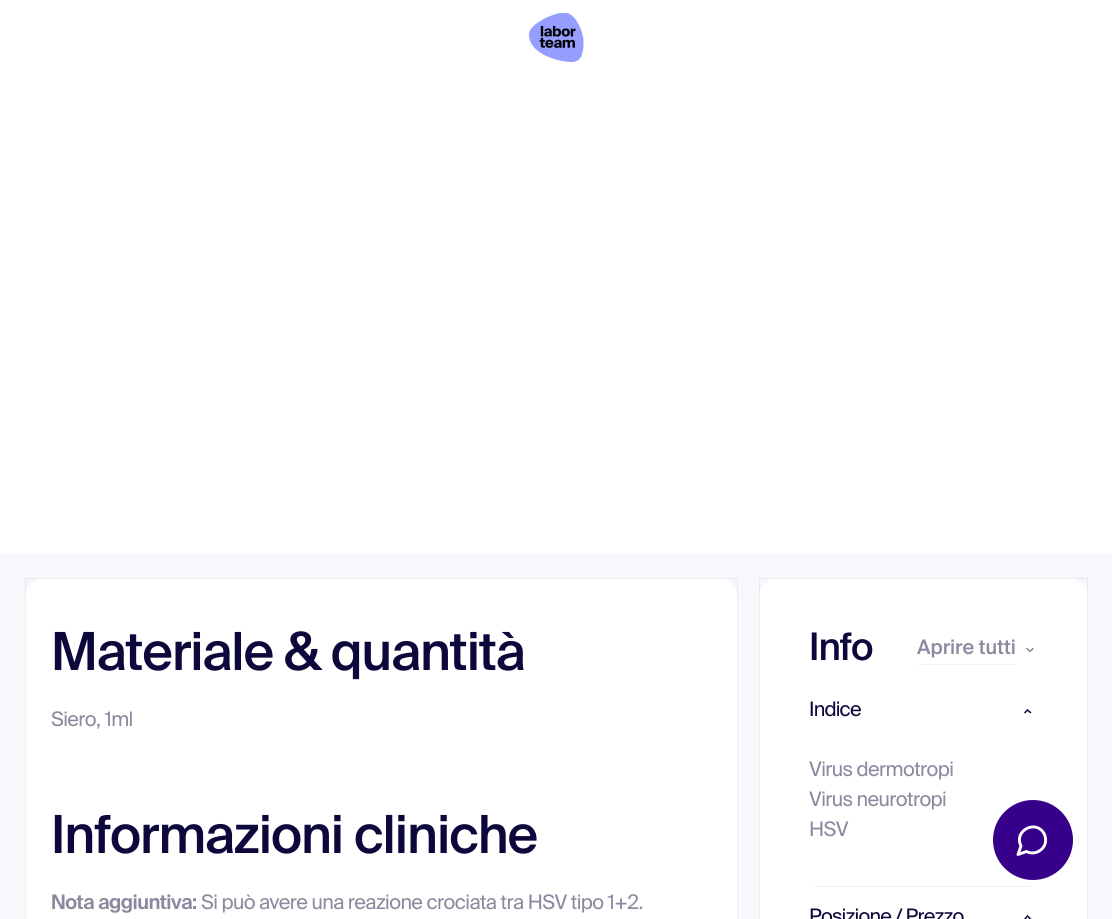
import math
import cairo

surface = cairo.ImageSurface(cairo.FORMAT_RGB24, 1112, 919)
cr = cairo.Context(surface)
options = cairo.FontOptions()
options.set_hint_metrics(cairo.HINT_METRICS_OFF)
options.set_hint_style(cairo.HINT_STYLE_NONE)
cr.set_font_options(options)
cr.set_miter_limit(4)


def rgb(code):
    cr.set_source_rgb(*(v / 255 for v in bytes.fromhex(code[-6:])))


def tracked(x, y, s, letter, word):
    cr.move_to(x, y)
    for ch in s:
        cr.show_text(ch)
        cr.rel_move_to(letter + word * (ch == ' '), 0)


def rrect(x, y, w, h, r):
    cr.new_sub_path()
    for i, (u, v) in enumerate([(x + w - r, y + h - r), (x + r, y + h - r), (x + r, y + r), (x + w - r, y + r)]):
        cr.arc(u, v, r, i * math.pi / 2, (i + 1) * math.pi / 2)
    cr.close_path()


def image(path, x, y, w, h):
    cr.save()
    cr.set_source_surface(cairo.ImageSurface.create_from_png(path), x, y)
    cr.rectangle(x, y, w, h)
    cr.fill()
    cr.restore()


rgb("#ffffff")
cr.paint()
image("img/1.png", 529, 13, 55, 49)
rgb("#f7f8fb")
cr.rectangle(0, 553, 1112, 366)
cr.fill()
rgb("#ffffff")
rrect(25, 578, 713, 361, 20)
cr.fill()
cr.rectangle(25.5, 578.5, 712, 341)
cr.set_source_rgba(0.051, 0.031, 0.235, 0.06)
cr.set_line_width(1)
cr.stroke()
rgb("#ffffff")
rrect(759, 578, 329, 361, 20)
cr.fill()
cr.rectangle(759.5, 578.5, 328, 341)
cr.set_source_rgba(0.051, 0.031, 0.235, 0.06)
cr.stroke()
rgb("#f0f0f3")
cr.rectangle(918, 664, 98, 1)
cr.fill()
cr.save()
cr.rectangle(1024, 648, 12, 4)
cr.clip()
cr.new_path()
cr.move_to(1026.5, 648)
cr.line_to(1030, 651.5)
cr.line_to(1033.5, 648)
rgb("#8c899f")
cr.set_line_width(1.5)
cr.stroke()
cr.restore()
cr.new_path()
cr.move_to(1031, 713)
cr.line_to(1027.5, 710)
cr.line_to(1024.5, 713)
rgb("#0d083c")
cr.set_line_width(1.5)
cr.stroke()
rgb("#eeeeee")
cr.rectangle(815, 886, 216, 1)
cr.fill()
cr.new_path()
cr.move_to(1031, 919.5)
cr.line_to(1027.5, 916)
cr.line_to(1024.5, 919.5)
rgb("#0d083c")
cr.stroke()
rgb("#37008a")
cr.arc(1033, 840, 40, 0, 2 * math.pi)
cr.fill()
cr.new_path()
cr.move_to(1026.5, 851.5)
cr.curve_to(1033, 855, 1041, 852, 1044.5, 845.5)
cr.curve_to(1046, 842, 1046, 838, 1044.5, 834.5)
cr.curve_to(1037, 818.5, 1013, 830.5, 1021, 846)
cr.line_to(1018, 854.5)
cr.close_path()
rgb("#ffffff")
cr.set_line_width(2.9)
cr.set_line_cap(cairo.LINE_CAP_ROUND)
cr.set_line_join(cairo.LINE_JOIN_ROUND)
cr.stroke()
cr.select_font_face("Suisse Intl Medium")
cr.set_font_size(52.5)
rgb("#0d083c")
tracked(51, 670, "Materiale & quantità", -1.05, 0)
cr.select_font_face("Suisse Intl")
cr.set_font_size(20)
rgb("#8c899f")
tracked(51, 726, "Siero, 1ml", -0.6, 0)
cr.select_font_face("Suisse Intl Medium")
cr.set_font_size(52.5)
rgb("#0d083c")
tracked(51, 853, "Informazioni cliniche", -1.05, 0)
cr.select_font_face("Suisse Intl SemiBold")
cr.set_font_size(20)
rgb("#8c899f")
tracked(51, 909, "Nota aggiuntiva:", -0.6, 0)
cr.select_font_face("Suisse Intl")
tracked(201, 909, "Si può avere una reazione crociata tra HSV tipo 1+2.", -0.6, 0)
cr.select_font_face("Suisse Intl Medium")
cr.set_font_size(38)
rgb("#0d083c")
tracked(809, 660, "Info", -1, 0)
cr.set_font_size(20)
rgb("#8c899f")
cr.move_to(917, 654)
cr.show_text("Aprire tutti")
cr.select_font_face("Suisse Intl")
rgb("#0d083c")
tracked(809, 716, "Indice", -0.8, 0)
rgb("#8c899f")
for x, y, s in [
    (809, 776, "Virus dermotropi"),
    (809, 806, "Virus neurotropi"),
    (809, 836, "HSV"),
]:
    tracked(x, y, s, -0.6, 0)
rgb("#0d083c")
tracked(809, 923, "Posizione / Prezzo", -0.8, 0)
surface.write_to_png("page.png")
